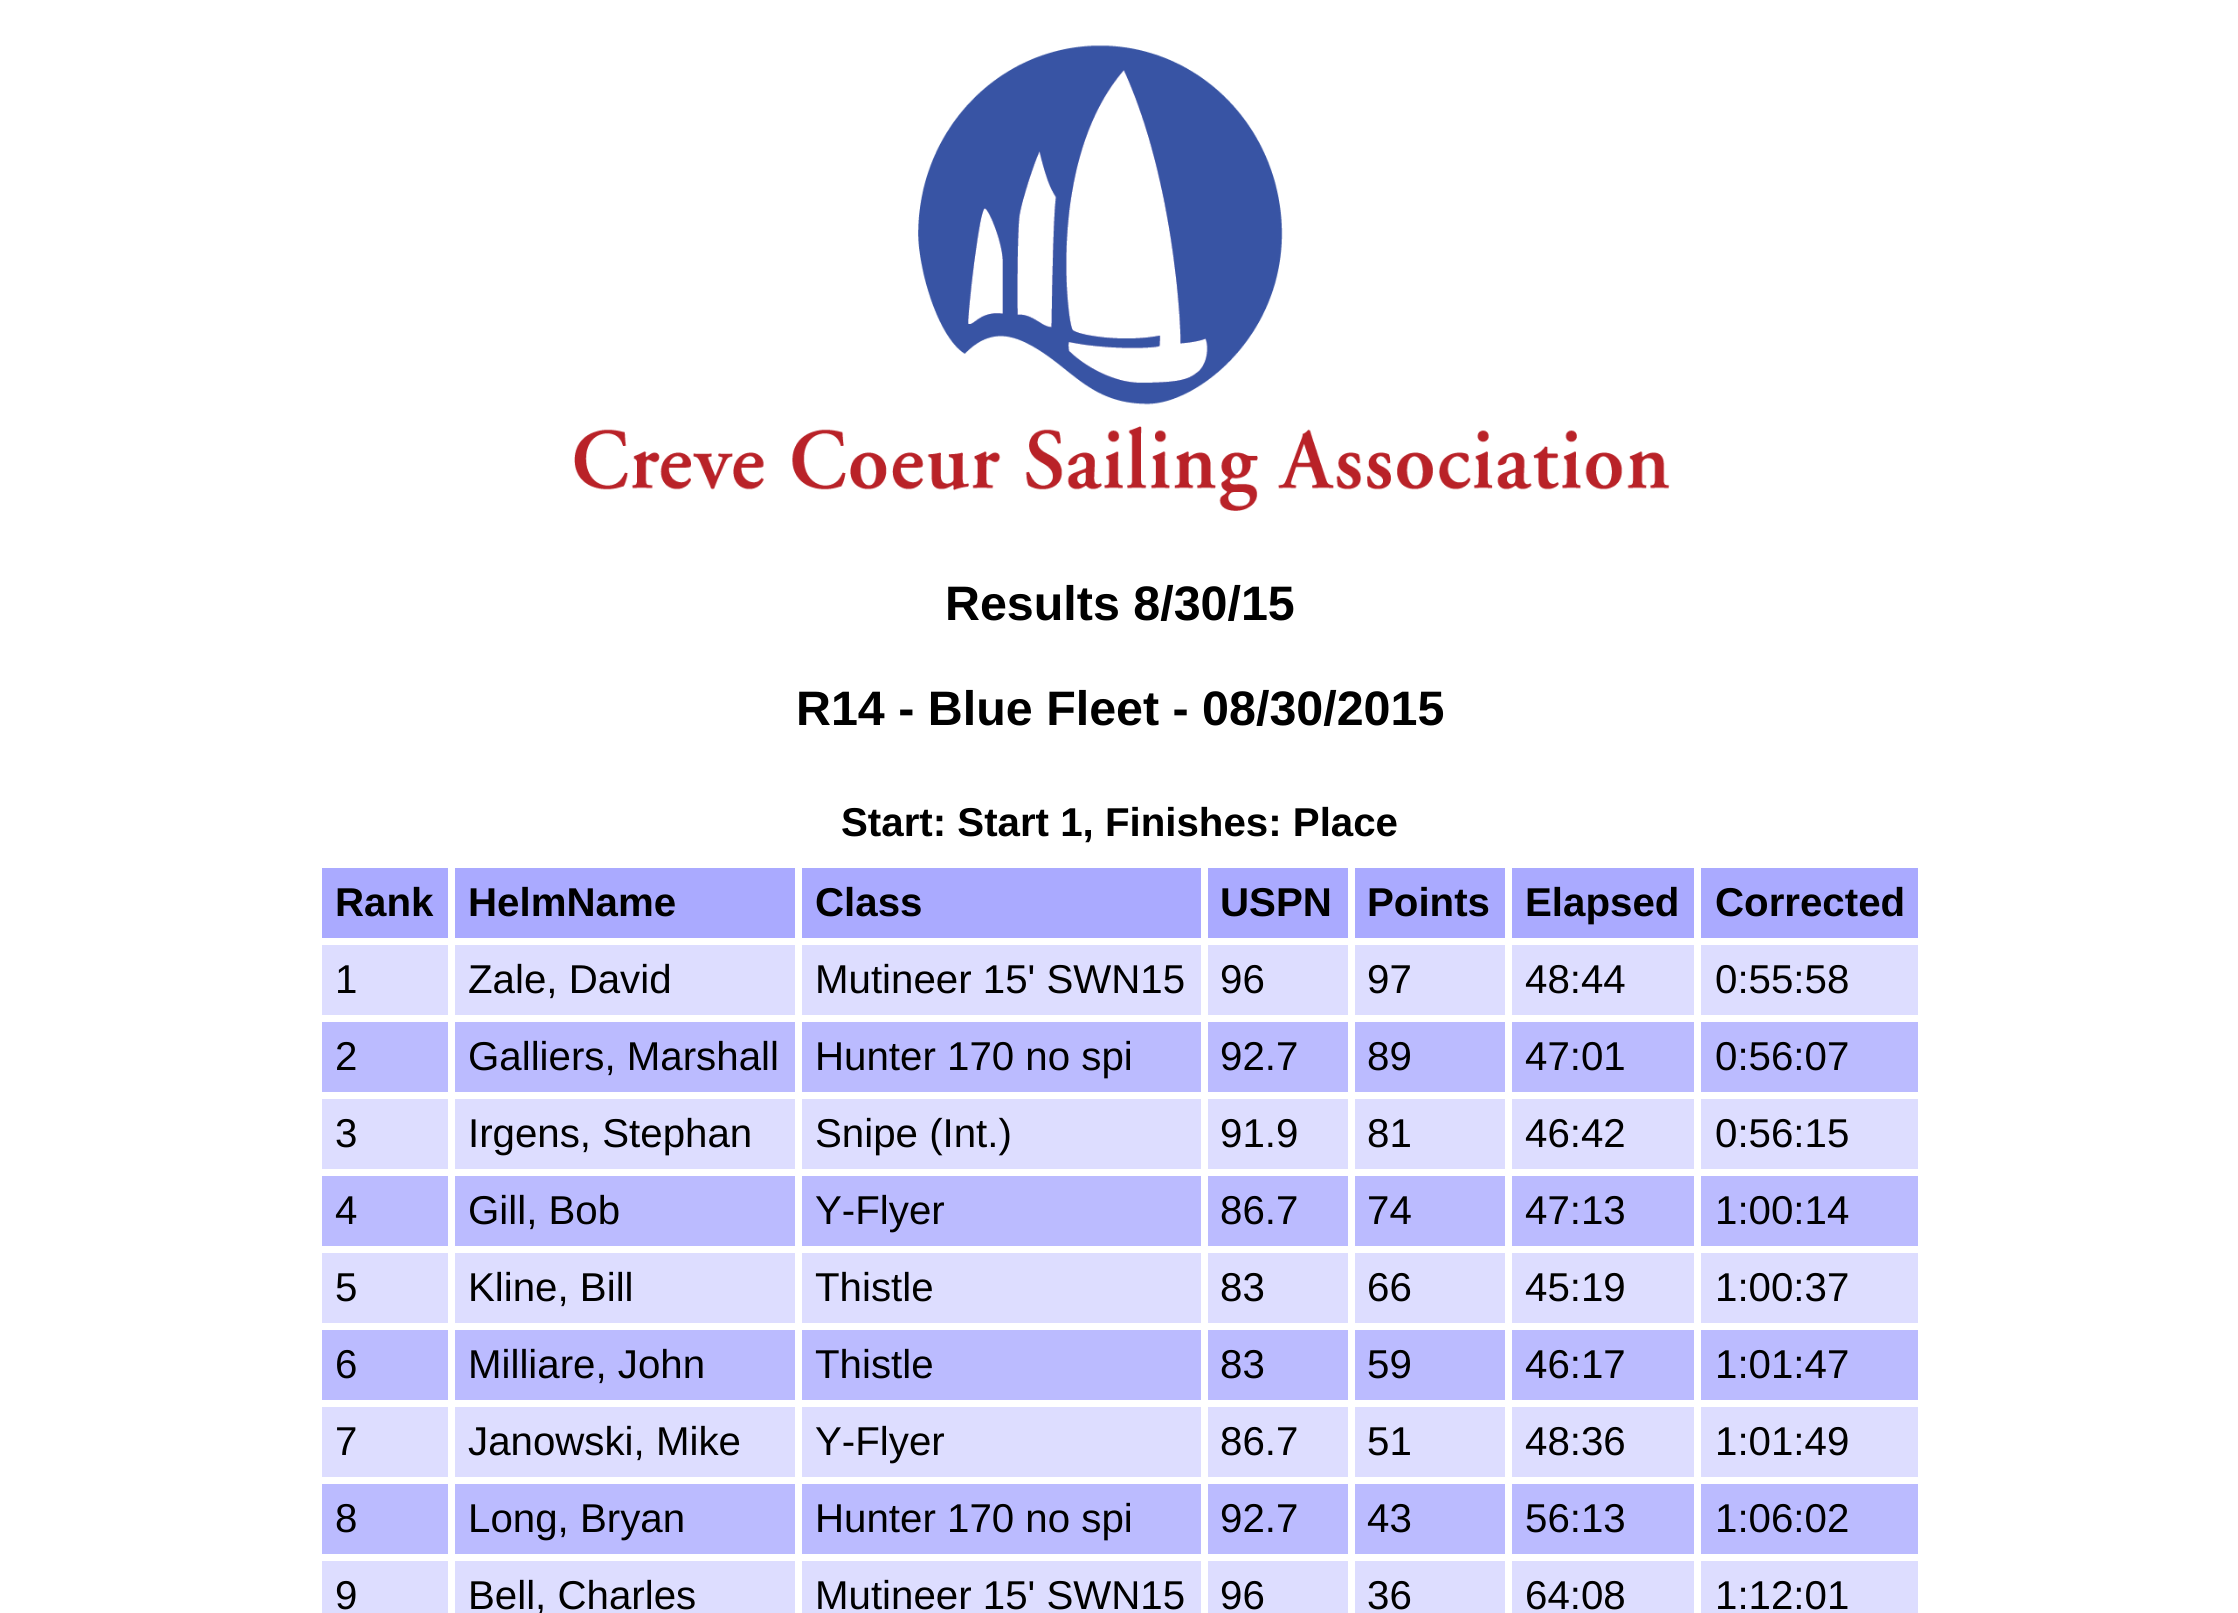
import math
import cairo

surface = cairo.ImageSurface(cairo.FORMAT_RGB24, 2238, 1613)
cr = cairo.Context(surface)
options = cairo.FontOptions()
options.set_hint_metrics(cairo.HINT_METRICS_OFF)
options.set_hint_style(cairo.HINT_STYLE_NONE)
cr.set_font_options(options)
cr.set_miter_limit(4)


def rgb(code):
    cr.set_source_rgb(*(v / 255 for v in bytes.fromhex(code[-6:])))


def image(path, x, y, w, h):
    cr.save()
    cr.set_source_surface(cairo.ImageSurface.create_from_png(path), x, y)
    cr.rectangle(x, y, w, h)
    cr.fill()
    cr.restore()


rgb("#ffffff")
cr.paint()
image("img/1.png", 574, 45, 1096, 466)
for x, y, w, h, color in [
    (322, 868, 126, 70, "#aaaaff"),
    (455, 868, 340, 70, "#aaaaff"),
    (802, 868, 399, 70, "#aaaaff"),
    (1208, 868, 140, 70, "#aaaaff"),
    (1355, 868, 150, 70, "#aaaaff"),
    (1512, 868, 182, 70, "#aaaaff"),
    (1701, 868, 217, 70, "#aaaaff"),
    (322, 945, 1596, 70, "#ddddff"),
    (322, 1022, 1596, 70, "#bbbbff"),
    (322, 1099, 1596, 70, "#ddddff"),
    (322, 1176, 1596, 70, "#bbbbff"),
    (322, 1253, 1596, 70, "#ddddff"),
    (322, 1330, 1596, 70, "#bbbbff"),
    (322, 1407, 1596, 70, "#ddddff"),
    (322, 1484, 1596, 70, "#bbbbff"),
    (322, 1561, 1596, 52, "#ddddff"),
    (448, 938, 7, 675, "#ffffff"),
    (795, 938, 7, 675, "#ffffff"),
    (1201, 938, 7, 675, "#ffffff"),
    (1348, 938, 7, 675, "#ffffff"),
    (1505, 938, 7, 675, "#ffffff"),
    (1694, 938, 7, 675, "#ffffff"),
]:
    rgb(color)
    cr.rectangle(x, y, w, h)
    cr.fill()
cr.select_font_face("Liberation Sans", cairo.FONT_SLANT_NORMAL, cairo.FONT_WEIGHT_BOLD)
cr.set_font_size(48.4)
rgb("#000000")
cr.move_to(945, 620)
cr.show_text("Results 8/30/15")
cr.move_to(796, 725)
cr.show_text("R14 - Blue Fleet - 08/30/2015")
cr.set_font_size(40.25)
for x, y, s in [
    (841, 836, "Start: Start 1, Finishes: Place"),
    (335, 916, "Rank"),
    (468, 916, "HelmName"),
    (815, 916, "Class"),
    (1220, 916, "USPN"),
    (1367, 916, "Points"),
    (1525, 916, "Elapsed"),
    (1715, 916, "Corrected"),
]:
    cr.move_to(x, y)
    cr.show_text(s)
cr.select_font_face("Liberation Sans")
for x, y, s in [
    (335, 993, "1"),
    (468, 993, "Zale, David"),
    (815, 993, "Mutineer 15' SWN15"),
    (1220, 993, "96"),
    (1367, 993, "97"),
    (1525, 993, "48:44"),
    (1715, 993, "0:55:58"),
    (335, 1070, "2"),
    (468, 1070, "Galliers, Marshall"),
    (815, 1070, "Hunter 170 no spi"),
    (1220, 1070, "92.7"),
    (1367, 1070, "89"),
    (1525, 1070, "47:01"),
    (1715, 1070, "0:56:07"),
    (335, 1147, "3"),
    (468, 1147, "Irgens, Stephan"),
    (815, 1147, "Snipe (Int.)"),
    (1220, 1147, "91.9"),
    (1367, 1147, "81"),
    (1525, 1147, "46:42"),
    (1715, 1147, "0:56:15"),
    (335, 1224, "4"),
    (468, 1224, "Gill, Bob"),
    (815, 1224, "Y-Flyer"),
    (1220, 1224, "86.7"),
    (1367, 1224, "74"),
    (1525, 1224, "47:13"),
    (1715, 1224, "1:00:14"),
    (335, 1301, "5"),
    (468, 1301, "Kline, Bill"),
    (815, 1301, "Thistle"),
    (1220, 1301, "83"),
    (1367, 1301, "66"),
    (1525, 1301, "45:19"),
    (1715, 1301, "1:00:37"),
    (335, 1378, "6"),
    (468, 1378, "Milliare, John"),
    (815, 1378, "Thistle"),
    (1220, 1378, "83"),
    (1367, 1378, "59"),
    (1525, 1378, "46:17"),
    (1715, 1378, "1:01:47"),
    (335, 1455, "7"),
    (468, 1455, "Janowski, Mike"),
    (815, 1455, "Y-Flyer"),
    (1220, 1455, "86.7"),
    (1367, 1455, "51"),
    (1525, 1455, "48:36"),
    (1715, 1455, "1:01:49"),
    (335, 1532, "8"),
    (468, 1532, "Long, Bryan"),
    (815, 1532, "Hunter 170 no spi"),
    (1220, 1532, "92.7"),
    (1367, 1532, "43"),
    (1525, 1532, "56:13"),
    (1715, 1532, "1:06:02"),
    (335, 1609, "9"),
    (468, 1609, "Bell, Charles"),
    (815, 1609, "Mutineer 15' SWN15"),
    (1220, 1609, "96"),
    (1367, 1609, "36"),
    (1525, 1609, "64:08"),
    (1715, 1609, "1:12:01"),
]:
    cr.move_to(x, y)
    cr.show_text(s)
surface.write_to_png("page.png")
